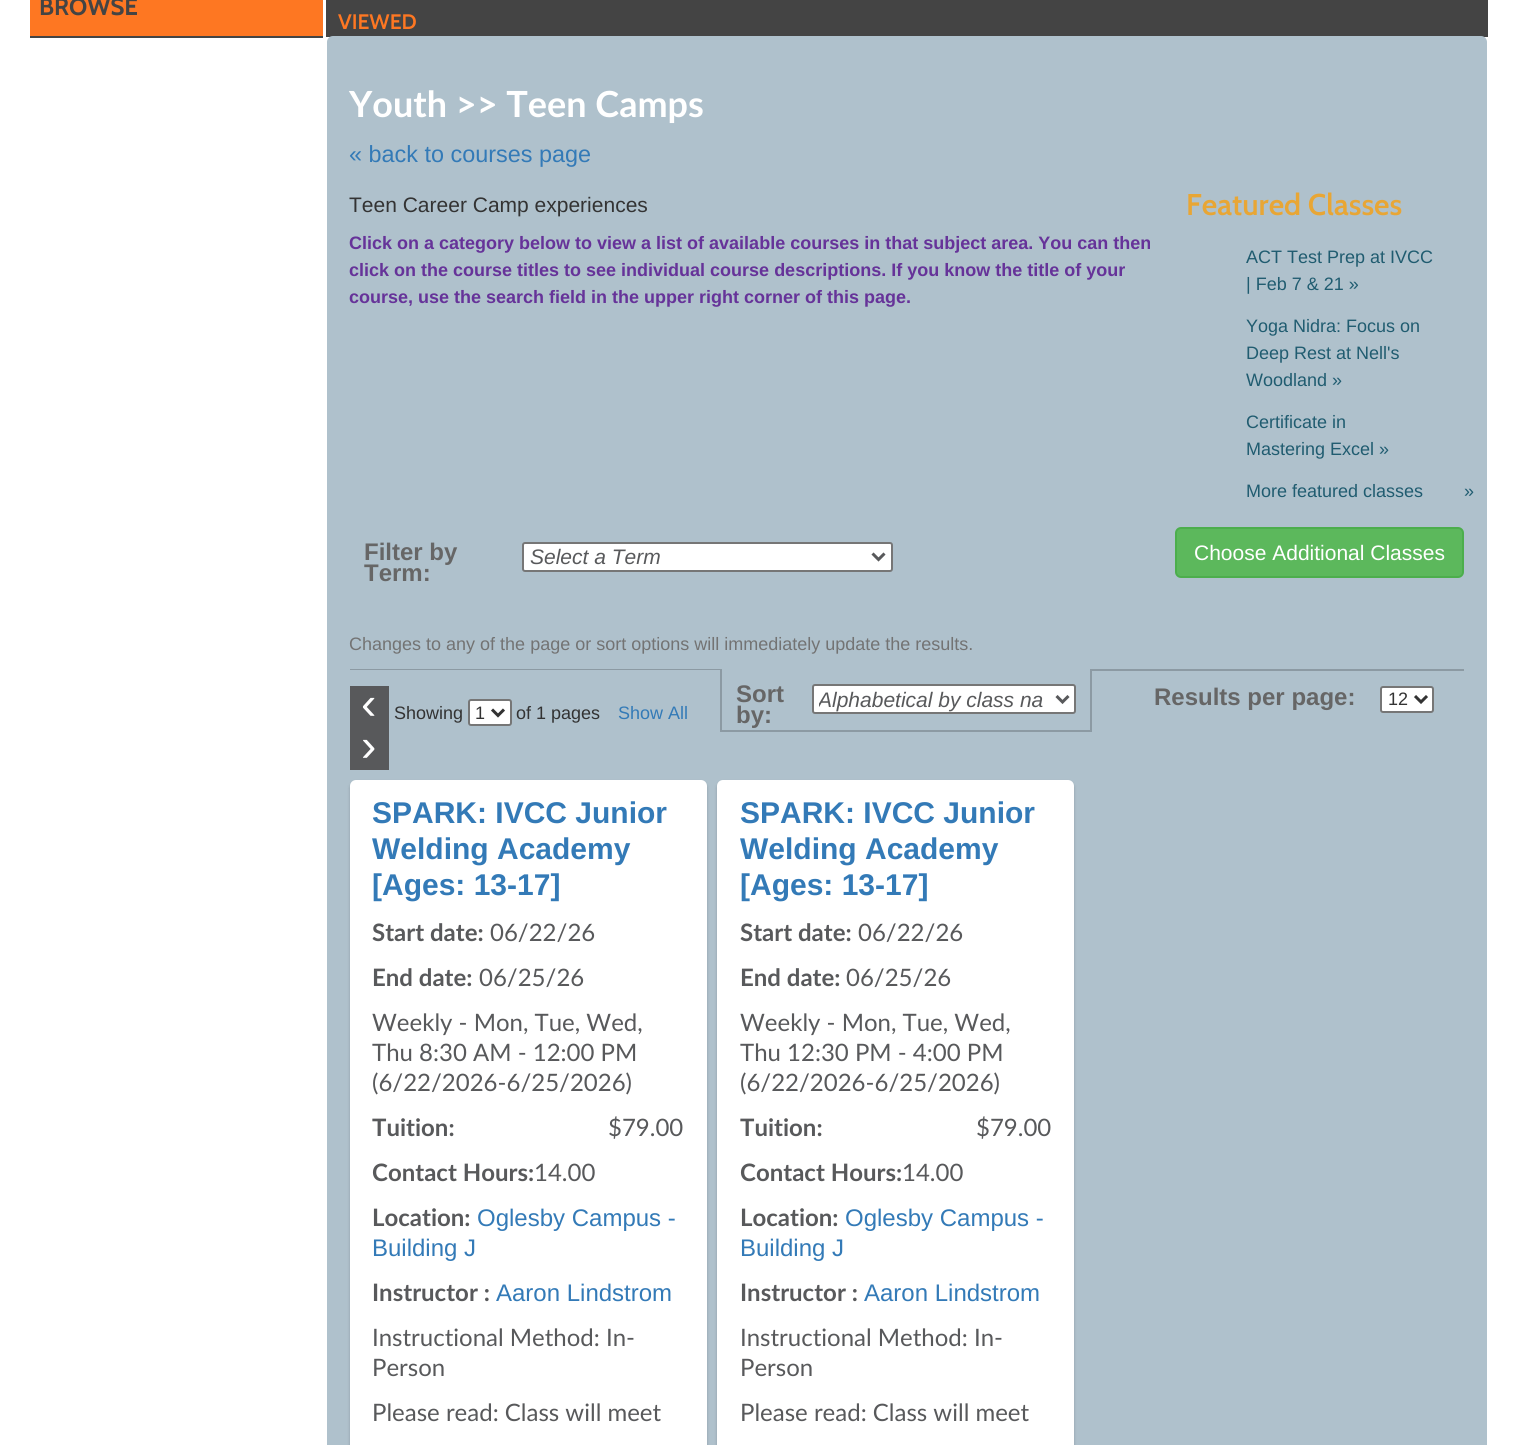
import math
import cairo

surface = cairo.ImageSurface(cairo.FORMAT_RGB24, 1518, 1445)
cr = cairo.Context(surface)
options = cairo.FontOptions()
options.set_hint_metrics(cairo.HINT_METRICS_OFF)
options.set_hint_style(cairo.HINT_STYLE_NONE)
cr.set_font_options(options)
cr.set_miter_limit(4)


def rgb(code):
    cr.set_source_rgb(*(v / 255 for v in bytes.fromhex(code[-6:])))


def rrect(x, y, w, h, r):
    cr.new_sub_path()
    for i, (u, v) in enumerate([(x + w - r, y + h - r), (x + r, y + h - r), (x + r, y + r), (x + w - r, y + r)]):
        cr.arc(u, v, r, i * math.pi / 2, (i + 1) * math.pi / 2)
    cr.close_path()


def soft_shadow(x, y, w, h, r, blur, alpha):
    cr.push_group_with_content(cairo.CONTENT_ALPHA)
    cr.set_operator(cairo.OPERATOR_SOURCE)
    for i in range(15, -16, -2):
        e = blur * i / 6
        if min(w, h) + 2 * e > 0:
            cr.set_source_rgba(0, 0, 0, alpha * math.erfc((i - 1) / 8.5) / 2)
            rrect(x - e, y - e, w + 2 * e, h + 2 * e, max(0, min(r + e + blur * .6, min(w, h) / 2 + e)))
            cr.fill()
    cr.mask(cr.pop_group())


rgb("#ffffff")
cr.paint()
for x, y, w, h, color in [
    (30, 0, 293, 36, "#fe7722"),
    (30, 36, 293, 2, "#444444"),
    (326, 0, 1162, 37, "#444444"),
]:
    rgb(color)
    cr.rectangle(x, y, w, h)
    cr.fill()
rgb("#afc1cc")
rrect(327, 36, 1160, 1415, 6)
cr.fill()
rgb("#ffffff")
rrect(523, 543, 369, 28, 2)
cr.fill_preserve()
rgb("#767676")
cr.stroke()
cr.new_path()
cr.move_to(872.5, 553.5)
cr.line_to(878.5, 559.5)
cr.line_to(884.5, 553.5)
rgb("#58595b")
cr.set_line_width(3)
cr.stroke()
rgb("#5cb85c")
rrect(1176, 528, 287, 49, 5)
cr.fill_preserve()
rgb("#4cae4c")
cr.set_line_width(2)
cr.stroke()
rgb("#8c9aa3")
cr.new_path()
cr.move_to(350, 669)
cr.line_to(722, 669)
cr.line_to(720, 670)
cr.line_to(350, 670)
cr.close_path()
cr.fill()
cr.set_source_rgba(0, 0, 0, 0.2)
cr.new_path()
cr.move_to(722, 669)
cr.line_to(722, 732)
cr.line_to(720, 732)
cr.line_to(720, 670)
cr.close_path()
cr.fill()
rgb("#58595b")
cr.rectangle(350, 686, 39, 84)
cr.fill()
rgb("#ffffff")
rrect(469, 700, 42, 25, 2)
cr.fill_preserve()
rgb("#767676")
cr.stroke()
cr.new_path()
cr.move_to(492, 709.5)
cr.line_to(498, 715.5)
cr.line_to(504, 709.5)
rgb("#333333")
cr.set_line_width(3)
cr.stroke()
rgb("#8c9aa3")
cr.new_path()
cr.move_to(1092, 669)
cr.line_to(1092, 732)
cr.line_to(1090, 730)
cr.line_to(1090, 669)
cr.close_path()
cr.fill()
cr.set_source_rgba(0, 0, 0, 0.2)
cr.new_path()
cr.move_to(1092, 732)
cr.line_to(722, 732)
cr.line_to(722, 730)
cr.line_to(1090, 730)
cr.close_path()
cr.fill()
rgb("#ffffff")
rrect(813, 685, 262, 28, 2)
cr.fill_preserve()
rgb("#767676")
cr.set_line_width(2)
cr.stroke()
cr.new_path()
cr.move_to(1056.5, 696)
cr.line_to(1062.5, 702)
cr.line_to(1068.5, 696)
rgb("#58595b")
cr.set_line_width(3)
cr.stroke()
rgb("#8c9aa3")
cr.rectangle(1092, 669, 372, 2)
cr.fill()
rgb("#ffffff")
rrect(1381, 687, 52, 25, 2)
cr.fill_preserve()
rgb("#767676")
cr.set_line_width(2)
cr.stroke()
cr.new_path()
cr.move_to(1415, 696)
cr.line_to(1421, 702)
cr.line_to(1427, 696)
rgb("#333333")
cr.set_line_width(3)
cr.stroke()
rgb("#000000")
soft_shadow(350, 782, 357, 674, 6, 1.5, 0.2)
rgb("#ffffff")
rrect(350, 780, 357, 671, 6)
cr.fill()
rgb("#000000")
soft_shadow(717, 782, 357, 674, 6, 1.5, 0.2)
rgb("#ffffff")
rrect(717, 780, 357, 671, 6)
cr.fill()
cr.select_font_face("Cabin", cairo.FONT_SLANT_NORMAL, cairo.FONT_WEIGHT_BOLD)
cr.set_font_size(24)
rgb("#444444")
cr.move_to(39, 15)
cr.show_text("BROWSE")
cr.select_font_face("Cabin SemiBold")
cr.set_font_size(21)
rgb("#fe7722")
cr.move_to(338, 29)
cr.show_text("VIEWED")
cr.select_font_face("Lato", cairo.FONT_SLANT_NORMAL, cairo.FONT_WEIGHT_BOLD)
cr.set_font_size(36)
rgb("#ffffff")
cr.move_to(349, 117)
cr.show_text("Youth >> Teen Camps")
cr.select_font_face("Liberation Sans")
cr.set_font_size(23.4)
rgb("#337ab7")
cr.move_to(349, 162)
cr.show_text("« back to courses page")
cr.set_font_size(21)
rgb("#333333")
cr.move_to(349, 212)
cr.show_text("Teen Career Camp experiences")
cr.select_font_face("Liberation Sans", cairo.FONT_SLANT_NORMAL, cairo.FONT_WEIGHT_BOLD)
cr.set_font_size(18)
rgb("#663399")
for x, y, s in [
    (349, 249, "Click on a category below to view a list of available courses in that subject area. You can then"),
    (349, 276, "click on the course titles to see individual course descriptions. If you know the title of your"),
    (349, 303, "course, use the search field in the upper right corner of this page."),
]:
    cr.move_to(x, y)
    cr.show_text(s)
cr.select_font_face("Cabin SemiBold")
cr.set_font_size(30)
rgb("#e8a635")
cr.move_to(1186, 215)
cr.show_text("Featured Classes")
cr.select_font_face("Liberation Sans")
cr.set_font_size(18)
rgb("#205c70")
for x, y, s in [
    (1246, 263, "ACT Test Prep at IVCC"),
    (1246, 290, "| Feb 7 & 21 »"),
    (1246, 332, "Yoga Nidra: Focus on"),
    (1246, 359, "Deep Rest at Nell's"),
    (1246, 386, "Woodland »"),
    (1246, 428, "Certificate in"),
    (1246, 455, "Mastering Excel »"),
    (1246, 497, "More featured classes"),
    (1464, 497, "»"),
]:
    cr.move_to(x, y)
    cr.show_text(s)
cr.select_font_face("Liberation Sans", cairo.FONT_SLANT_NORMAL, cairo.FONT_WEIGHT_BOLD)
cr.set_font_size(24)
rgb("#666666")
cr.move_to(364, 560)
cr.show_text("Filter by")
cr.move_to(364, 581)
cr.show_text("Term:")
cr.select_font_face("Liberation Sans", cairo.FONT_SLANT_ITALIC)
cr.set_font_size(21)
rgb("#58595b")
cr.move_to(530, 564)
cr.show_text("Select a Term")
cr.select_font_face("Liberation Sans")
rgb("#ffffff")
cr.move_to(1194, 560)
cr.show_text("Choose Additional Classes")
cr.set_font_size(18)
rgb("#737373")
cr.move_to(349, 650)
cr.show_text("Changes to any of the page or sort options will immediately update the results.")
cr.set_font_size(46)
rgb("#ffffff")
cr.move_to(361, 719)
cr.show_text("‹")
cr.set_font_size(18)
rgb("#333333")
for x, y, s in [
    (394, 719, "Showing"),
    (475, 719, "1"),
    (516, 719, "of 1 pages"),
]:
    cr.move_to(x, y)
    cr.show_text(s)
rgb("#337ab7")
cr.move_to(618, 719)
cr.show_text("Show All")
cr.set_font_size(46)
rgb("#ffffff")
cr.move_to(361, 761)
cr.show_text("›")
cr.select_font_face("Liberation Sans", cairo.FONT_SLANT_NORMAL, cairo.FONT_WEIGHT_BOLD)
cr.set_font_size(24)
rgb("#666666")
cr.move_to(736, 702)
cr.show_text("Sort")
cr.move_to(736, 723)
cr.show_text("by:")
cr.save()
cr.rectangle(819, 686, 231, 27)
cr.clip()
cr.select_font_face("Liberation Sans", cairo.FONT_SLANT_ITALIC)
cr.set_font_size(21)
rgb("#58595b")
cr.move_to(818, 707)
cr.show_text("Alphabetical by class na")
cr.restore()
cr.move_to(1154, 705)
cr.show_text("Results per page:")
cr.select_font_face("Liberation Sans")
cr.set_font_size(18)
rgb("#333333")
cr.move_to(1388, 705)
cr.show_text("12")
cr.select_font_face("Liberation Sans", cairo.FONT_SLANT_NORMAL, cairo.FONT_WEIGHT_BOLD)
cr.set_font_size(30)
rgb("#337ab7")
for x, y, s in [
    (372, 823, "SPARK: IVCC Junior"),
    (372, 859, "Welding Academy"),
    (372, 895, "[Ages: 13-17]"),
]:
    cr.move_to(x, y)
    cr.show_text(s)
cr.select_font_face("Lato", cairo.FONT_SLANT_NORMAL, cairo.FONT_WEIGHT_BOLD)
cr.set_font_size(24)
rgb("#58595b")
cr.move_to(372, 941)
cr.show_text("Start date:")
cr.select_font_face("Lato")
cr.move_to(490, 941)
cr.show_text("06/22/26")
cr.select_font_face("Lato", cairo.FONT_SLANT_NORMAL, cairo.FONT_WEIGHT_BOLD)
cr.move_to(372, 986)
cr.show_text("End date:")
cr.select_font_face("Lato")
for x, y, s in [
    (479, 986, "06/25/26"),
    (372, 1031, "Weekly - Mon, Tue, Wed,"),
    (372, 1061, "Thu 8:30 AM - 12:00 PM"),
    (372, 1091, "(6/22/2026-6/25/2026)"),
]:
    cr.move_to(x, y)
    cr.show_text(s)
cr.select_font_face("Lato", cairo.FONT_SLANT_NORMAL, cairo.FONT_WEIGHT_BOLD)
cr.move_to(372, 1136)
cr.show_text("Tuition:")
cr.select_font_face("Lato")
cr.move_to(608, 1136)
cr.show_text("$79.00")
cr.select_font_face("Lato", cairo.FONT_SLANT_NORMAL, cairo.FONT_WEIGHT_BOLD)
cr.move_to(372, 1181)
cr.show_text("Contact Hours:")
cr.select_font_face("Lato")
cr.move_to(534, 1181)
cr.show_text("14.00")
cr.select_font_face("Lato", cairo.FONT_SLANT_NORMAL, cairo.FONT_WEIGHT_BOLD)
cr.move_to(372, 1226)
cr.show_text("Location:")
cr.select_font_face("Liberation Sans")
rgb("#337ab7")
cr.move_to(477, 1226)
cr.show_text("Oglesby Campus -")
cr.move_to(372, 1256)
cr.show_text("Building J")
cr.select_font_face("Lato", cairo.FONT_SLANT_NORMAL, cairo.FONT_WEIGHT_BOLD)
rgb("#58595b")
cr.move_to(372, 1301)
cr.show_text("Instructor :")
cr.select_font_face("Liberation Sans")
rgb("#337ab7")
cr.move_to(496, 1301)
cr.show_text("Aaron Lindstrom")
cr.select_font_face("Lato")
rgb("#58595b")
for x, y, s in [
    (372, 1346, "Instructional Method: In-"),
    (372, 1376, "Person"),
    (372, 1421, "Please read: Class will meet"),
]:
    cr.move_to(x, y)
    cr.show_text(s)
cr.select_font_face("Liberation Sans", cairo.FONT_SLANT_NORMAL, cairo.FONT_WEIGHT_BOLD)
cr.set_font_size(30)
rgb("#337ab7")
for x, y, s in [
    (740, 823, "SPARK: IVCC Junior"),
    (740, 859, "Welding Academy"),
    (740, 895, "[Ages: 13-17]"),
]:
    cr.move_to(x, y)
    cr.show_text(s)
cr.select_font_face("Lato", cairo.FONT_SLANT_NORMAL, cairo.FONT_WEIGHT_BOLD)
cr.set_font_size(24)
rgb("#58595b")
cr.move_to(740, 941)
cr.show_text("Start date:")
cr.select_font_face("Lato")
cr.move_to(858, 941)
cr.show_text("06/22/26")
cr.select_font_face("Lato", cairo.FONT_SLANT_NORMAL, cairo.FONT_WEIGHT_BOLD)
cr.move_to(740, 986)
cr.show_text("End date:")
cr.select_font_face("Lato")
for x, y, s in [
    (846, 986, "06/25/26"),
    (740, 1031, "Weekly - Mon, Tue, Wed,"),
    (740, 1061, "Thu 12:30 PM - 4:00 PM"),
    (740, 1091, "(6/22/2026-6/25/2026)"),
]:
    cr.move_to(x, y)
    cr.show_text(s)
cr.select_font_face("Lato", cairo.FONT_SLANT_NORMAL, cairo.FONT_WEIGHT_BOLD)
cr.move_to(740, 1136)
cr.show_text("Tuition:")
cr.select_font_face("Lato")
cr.move_to(976, 1136)
cr.show_text("$79.00")
cr.select_font_face("Lato", cairo.FONT_SLANT_NORMAL, cairo.FONT_WEIGHT_BOLD)
cr.move_to(740, 1181)
cr.show_text("Contact Hours:")
cr.select_font_face("Lato")
cr.move_to(902, 1181)
cr.show_text("14.00")
cr.select_font_face("Lato", cairo.FONT_SLANT_NORMAL, cairo.FONT_WEIGHT_BOLD)
cr.move_to(740, 1226)
cr.show_text("Location:")
cr.select_font_face("Liberation Sans")
rgb("#337ab7")
cr.move_to(845, 1226)
cr.show_text("Oglesby Campus -")
cr.move_to(740, 1256)
cr.show_text("Building J")
cr.select_font_face("Lato", cairo.FONT_SLANT_NORMAL, cairo.FONT_WEIGHT_BOLD)
rgb("#58595b")
cr.move_to(740, 1301)
cr.show_text("Instructor :")
cr.select_font_face("Liberation Sans")
rgb("#337ab7")
cr.move_to(864, 1301)
cr.show_text("Aaron Lindstrom")
cr.select_font_face("Lato")
rgb("#58595b")
for x, y, s in [
    (740, 1346, "Instructional Method: In-"),
    (740, 1376, "Person"),
    (740, 1421, "Please read: Class will meet"),
]:
    cr.move_to(x, y)
    cr.show_text(s)
surface.write_to_png("page.png")
